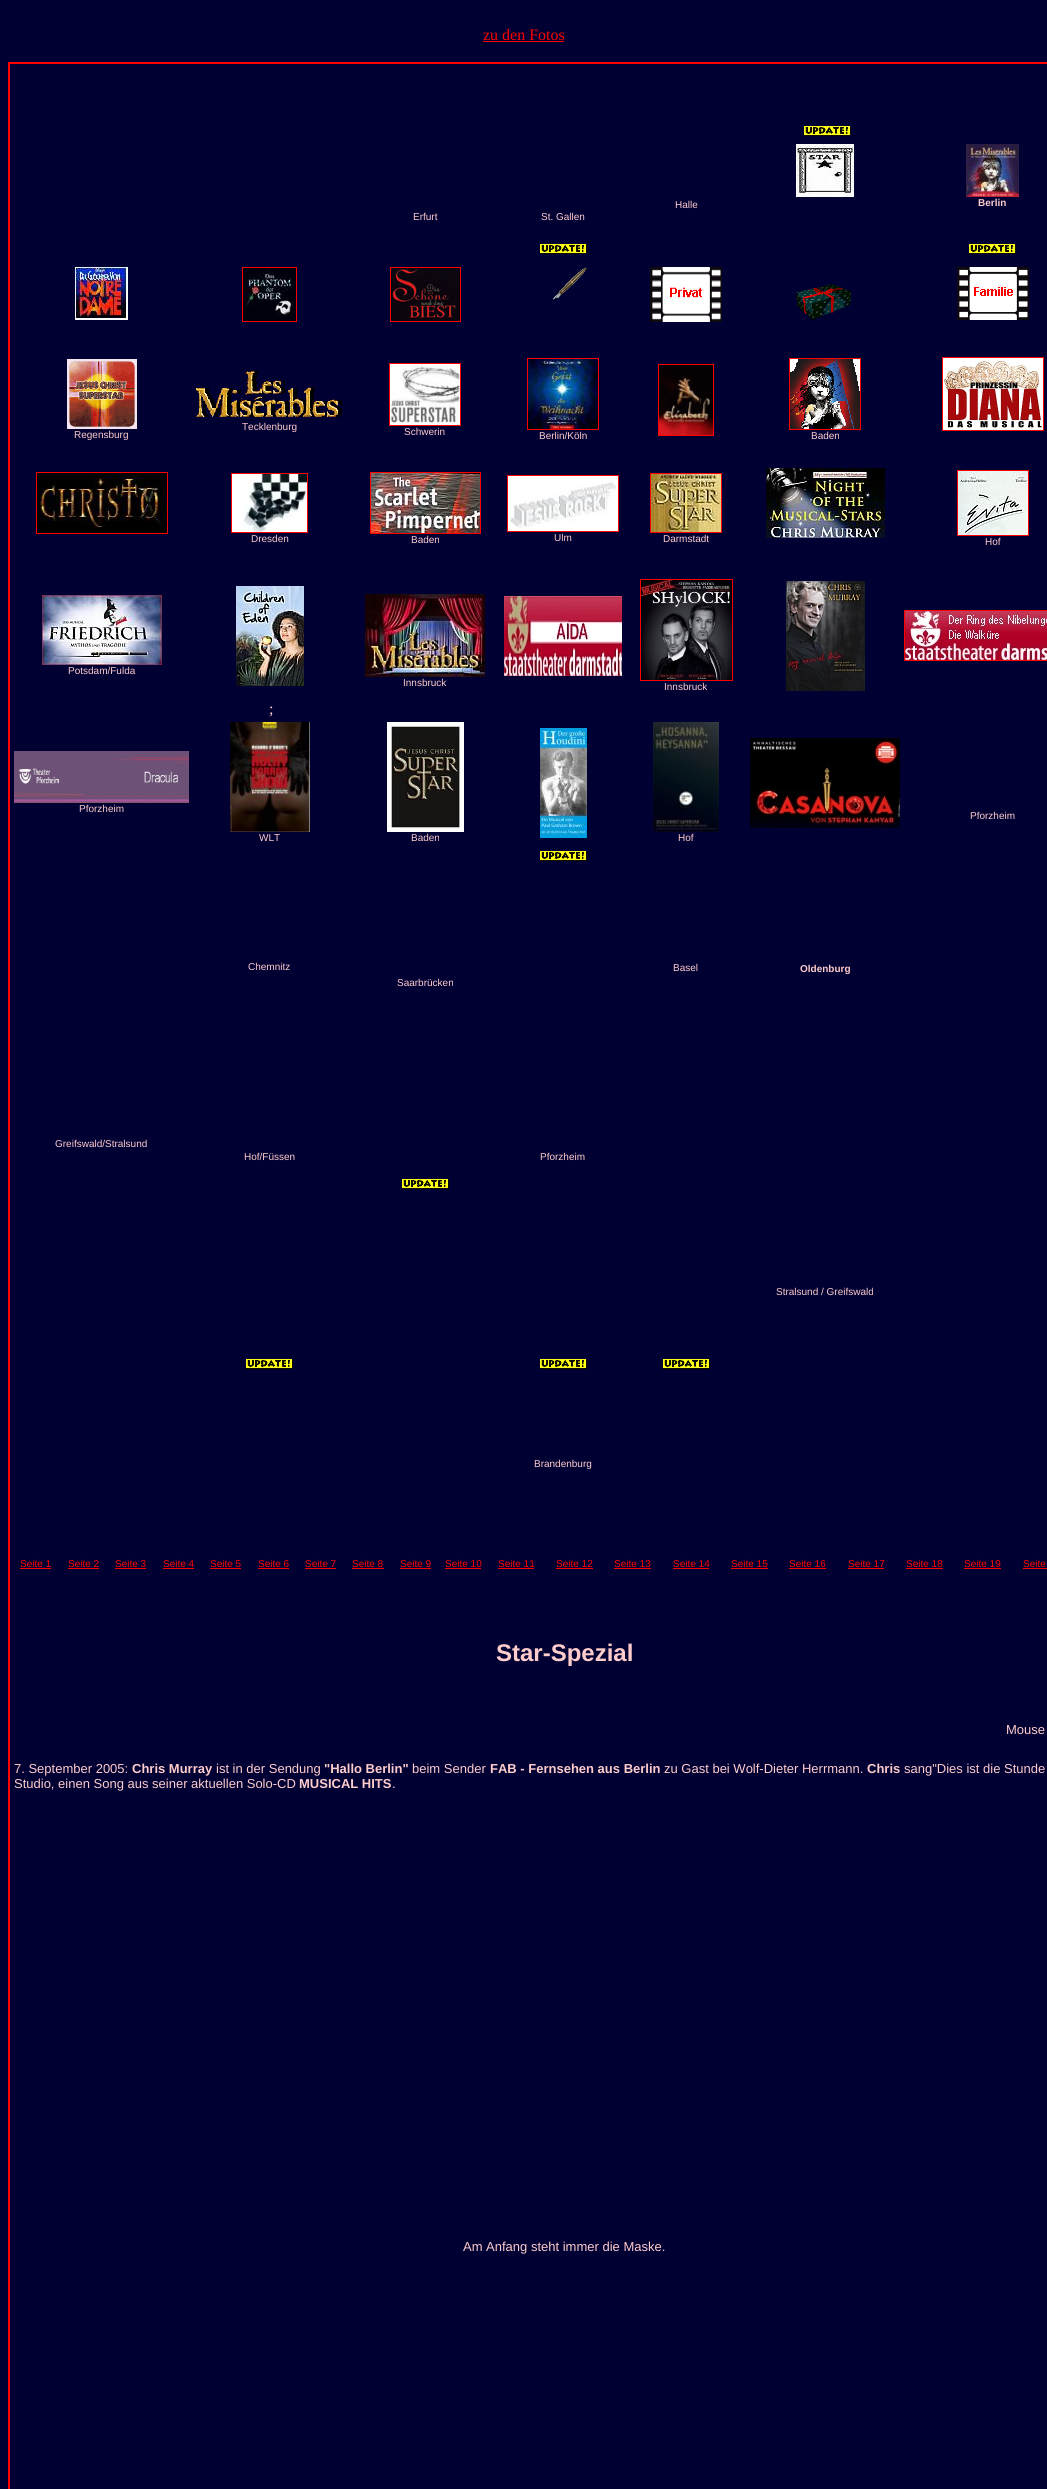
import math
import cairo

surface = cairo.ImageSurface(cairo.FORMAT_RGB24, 1047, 2489)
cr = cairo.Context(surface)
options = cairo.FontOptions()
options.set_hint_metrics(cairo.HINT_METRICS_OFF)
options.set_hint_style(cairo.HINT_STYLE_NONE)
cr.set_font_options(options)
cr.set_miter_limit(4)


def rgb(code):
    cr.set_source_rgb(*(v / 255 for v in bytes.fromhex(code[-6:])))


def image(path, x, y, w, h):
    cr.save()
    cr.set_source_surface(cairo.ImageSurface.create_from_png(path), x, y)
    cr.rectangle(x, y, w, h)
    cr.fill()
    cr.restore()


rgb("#000033")
cr.paint()
rgb("#ff0000")
cr.rectangle(483, 41, 81, 1)
cr.fill()
cr.rectangle(8.5, 62.5, 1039, 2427)
cr.set_line_width(1)
cr.stroke()
cr.rectangle(9.5, 63.5, 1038, 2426)
cr.stroke()
image("img/1.png", 804, 126, 47, 10)
image("img/2.png", 796, 144, 58, 53)
image("img/3.png", 966, 144, 53, 53)
image("img/1.png", 540, 244, 47, 10)
image("img/1.png", 969, 244, 47, 10)
image("img/4.png", 75, 267, 53, 53)
cr.rectangle(242.5, 267.5, 54, 54)
cr.stroke()
image("img/5.png", 243, 268, 53, 53)
cr.rectangle(390.5, 267.5, 70, 54)
cr.stroke()
image("img/6.png", 391, 268, 69, 53)
image("img/7.png", 553, 267, 34, 33)
image("img/8.png", 650, 267, 72, 55)
image("img/9.png", 796, 284, 55, 36)
image("img/10.png", 957, 267, 72, 53)
image("img/11.png", 67, 359, 70, 70)
image("img/12.png", 196, 371, 146, 46)
cr.rectangle(389.5, 363.5, 71, 62)
cr.stroke()
image("img/13.png", 390, 364, 70, 61)
cr.rectangle(527.5, 358.5, 71, 71)
cr.stroke()
image("img/14.png", 528, 359, 70, 70)
cr.rectangle(658.5, 364.5, 55, 71)
cr.stroke()
image("img/15.png", 659, 365, 54, 70)
cr.rectangle(789.5, 358.5, 71, 71)
cr.stroke()
image("img/16.png", 790, 359, 70, 70)
cr.rectangle(942.5, 357.5, 101, 73)
cr.stroke()
image("img/17.png", 943, 358, 100, 72)
cr.rectangle(36.5, 472.5, 131, 61)
cr.stroke()
image("img/18.png", 37, 473, 130, 60)
image("img/19.png", 766, 468, 119, 70)
cr.rectangle(231.5, 473.5, 76, 59)
cr.stroke()
image("img/20.png", 232, 474, 75, 58)
cr.rectangle(370.5, 472.5, 110, 61)
cr.stroke()
image("img/21.png", 371, 473, 109, 60)
cr.rectangle(507.5, 475.5, 111, 56)
cr.stroke()
image("img/22.png", 508, 476, 110, 55)
cr.rectangle(650.5, 473.5, 71, 59)
cr.stroke()
image("img/23.png", 651, 474, 70, 58)
cr.rectangle(957.5, 470.5, 71, 65)
cr.stroke()
image("img/24.png", 958, 471, 70, 64)
image("img/25.png", 236, 586, 68, 100)
image("img/26.png", 504, 596, 118, 80)
image("img/27.png", 786, 581, 79, 110)
cr.rectangle(904.5, 610.5, 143, 50)
cr.stroke()
image("img/28.png", 905, 611, 142, 49)
image("img/29.png", 42, 595, 120, 70)
image("img/30.png", 365, 594, 120, 83)
cr.rectangle(640.5, 579.5, 92, 101)
cr.stroke()
image("img/31.png", 641, 580, 91, 100)
image("img/32.png", 14, 751, 175, 52)
image("img/33.png", 540, 728, 47, 110)
image("img/34.png", 750, 738, 150, 90)
image("img/35.png", 230, 722, 80, 110)
image("img/36.png", 387, 722, 77, 110)
image("img/37.png", 653, 722, 66, 110)
image("img/1.png", 540, 851, 47, 10)
image("img/1.png", 402, 1179, 47, 10)
image("img/1.png", 246, 1359, 47, 10)
image("img/1.png", 540, 1359, 47, 10)
image("img/1.png", 663, 1359, 47, 10)
for x, y, w, h, color in [
    (20, 1568, 31, 1, "#ff0000"),
    (68, 1568, 31, 1, "#ff0000"),
    (115, 1568, 31, 1, "#ff0000"),
    (163, 1568, 31, 1, "#ff0000"),
    (210, 1568, 31, 1, "#ff0000"),
    (258, 1568, 31, 1, "#ff0000"),
    (305, 1568, 31, 1, "#ff0000"),
    (352, 1568, 32, 1, "#ff0000"),
    (400, 1568, 31, 1, "#ff0000"),
    (445, 1568, 36, 1, "#ff0000"),
    (498, 1568, 36, 1, "#ff0000"),
    (556, 1568, 37, 1, "#ff0000"),
    (614, 1568, 37, 1, "#ff0000"),
    (673, 1568, 36, 1, "#ff0000"),
    (731, 1568, 37, 1, "#ff0000"),
    (789, 1568, 37, 1, "#ff0000"),
    (848, 1568, 36, 1, "#ff0000"),
    (906, 1568, 37, 1, "#ff0000"),
    (964, 1568, 37, 1, "#ff0000"),
    (1023, 1568, 24, 1, "#ff0000"),
]:
    rgb(color)
    cr.rectangle(x, y, w, h)
    cr.fill()
cr.select_font_face("Liberation Serif")
cr.set_font_size(16)
cr.move_to(483, 40)
cr.show_text("zu den Fotos")
cr.select_font_face("Liberation Sans")
cr.set_font_size(10)
rgb("#ffcccc")
cr.move_to(675, 208)
cr.show_text("Halle")
cr.select_font_face("Liberation Sans", cairo.FONT_SLANT_NORMAL, cairo.FONT_WEIGHT_BOLD)
cr.move_to(978, 206)
cr.show_text("Berlin")
cr.select_font_face("Liberation Sans")
for x, y, s in [
    (413, 220, "Erfurt"),
    (541, 220, "St. Gallen"),
    (74, 438, "Regensburg"),
    (242, 430, "Tecklenburg"),
    (404, 435, "Schwerin"),
    (539, 439, "Berlin/Köln"),
    (811, 439, "Baden"),
    (251, 542, "Dresden"),
    (411, 543, "Baden"),
    (554, 541, "Ulm"),
    (663, 542, "Darmstadt"),
    (985, 545, "Hof"),
    (68, 674, "Potsdam/Fulda"),
    (403, 686, "Innsbruck"),
    (664, 690, "Innsbruck"),
]:
    cr.move_to(x, y)
    cr.show_text(s)
cr.select_font_face("Liberation Serif")
cr.set_font_size(16)
cr.move_to(269, 714)
cr.show_text(";")
cr.select_font_face("Liberation Sans")
cr.set_font_size(10)
for x, y, s in [
    (79, 812, "Pforzheim"),
    (970, 819, "Pforzheim"),
    (259, 841, "WLT"),
    (411, 841, "Baden"),
    (678, 841, "Hof"),
    (248, 970, "Chemnitz"),
    (673, 971, "Basel"),
]:
    cr.move_to(x, y)
    cr.show_text(s)
cr.select_font_face("Liberation Sans", cairo.FONT_SLANT_NORMAL, cairo.FONT_WEIGHT_BOLD)
cr.move_to(800, 972)
cr.show_text("Oldenburg")
cr.select_font_face("Liberation Sans")
for x, y, s in [
    (397, 986, "Saarbrücken"),
    (55, 1147, "Greifswald/Stralsund"),
    (244, 1160, "Hof/Füssen"),
    (540, 1160, "Pforzheim"),
    (776, 1295, "Stralsund / Greifswald"),
    (534, 1467, "Brandenburg"),
]:
    cr.move_to(x, y)
    cr.show_text(s)
rgb("#ff0000")
for x, y, s in [
    (20, 1567, "Seite 1"),
    (68, 1567, "Seite 2"),
    (115, 1567, "Seite 3"),
    (163, 1567, "Seite 4"),
    (210, 1567, "Seite 5"),
    (258, 1567, "Seite 6"),
    (305, 1567, "Seite 7"),
    (352, 1567, "Seite 8"),
    (400, 1567, "Seite 9"),
    (445, 1567, "Seite 10"),
    (498, 1567, "Seite 11"),
    (556, 1567, "Seite 12"),
    (614, 1567, "Seite 13"),
    (673, 1567, "Seite 14"),
    (731, 1567, "Seite 15"),
    (789, 1567, "Seite 16"),
    (848, 1567, "Seite 17"),
    (906, 1567, "Seite 18"),
    (964, 1567, "Seite 19"),
    (1023, 1567, "Seite"),
]:
    cr.move_to(x, y)
    cr.show_text(s)
cr.select_font_face("Liberation Sans", cairo.FONT_SLANT_NORMAL, cairo.FONT_WEIGHT_BOLD)
cr.set_font_size(24)
rgb("#ffcccc")
cr.move_to(496, 1661)
cr.show_text("Star-Spezial")
cr.select_font_face("Liberation Sans")
cr.set_font_size(13)
cr.move_to(1006, 1734)
cr.show_text("Mouse")
cr.move_to(14, 1773)
cr.show_text("7. September 2005:")
cr.select_font_face("Liberation Sans", cairo.FONT_SLANT_NORMAL, cairo.FONT_WEIGHT_BOLD)
cr.move_to(132, 1773)
cr.show_text("Chris Murray")
cr.select_font_face("Liberation Sans")
cr.move_to(216, 1773)
cr.show_text("ist in der Sendung")
cr.select_font_face("Liberation Sans", cairo.FONT_SLANT_NORMAL, cairo.FONT_WEIGHT_BOLD)
cr.move_to(324, 1773)
cr.show_text("\"Hallo Berlin\"")
cr.select_font_face("Liberation Sans")
cr.move_to(412, 1773)
cr.show_text("beim Sender")
cr.select_font_face("Liberation Sans", cairo.FONT_SLANT_NORMAL, cairo.FONT_WEIGHT_BOLD)
cr.move_to(490, 1773)
cr.show_text("FAB - Fernsehen aus Berlin")
cr.select_font_face("Liberation Sans")
cr.move_to(664, 1773)
cr.show_text("zu Gast bei Wolf-Dieter Herrmann.")
cr.select_font_face("Liberation Sans", cairo.FONT_SLANT_NORMAL, cairo.FONT_WEIGHT_BOLD)
cr.move_to(867, 1773)
cr.show_text("Chris")
cr.select_font_face("Liberation Sans")
cr.move_to(904, 1773)
cr.show_text("sang\"Dies ist die Stunde")
cr.move_to(14, 1788)
cr.show_text("Studio, einen Song aus seiner aktuellen Solo-CD")
cr.select_font_face("Liberation Sans", cairo.FONT_SLANT_NORMAL, cairo.FONT_WEIGHT_BOLD)
cr.move_to(299, 1788)
cr.show_text("MUSICAL HITS")
cr.select_font_face("Liberation Sans")
cr.move_to(392, 1788)
cr.show_text(".")
cr.move_to(463, 2251)
cr.show_text("Am Anfang steht immer die Maske.")
surface.write_to_png("page.png")
